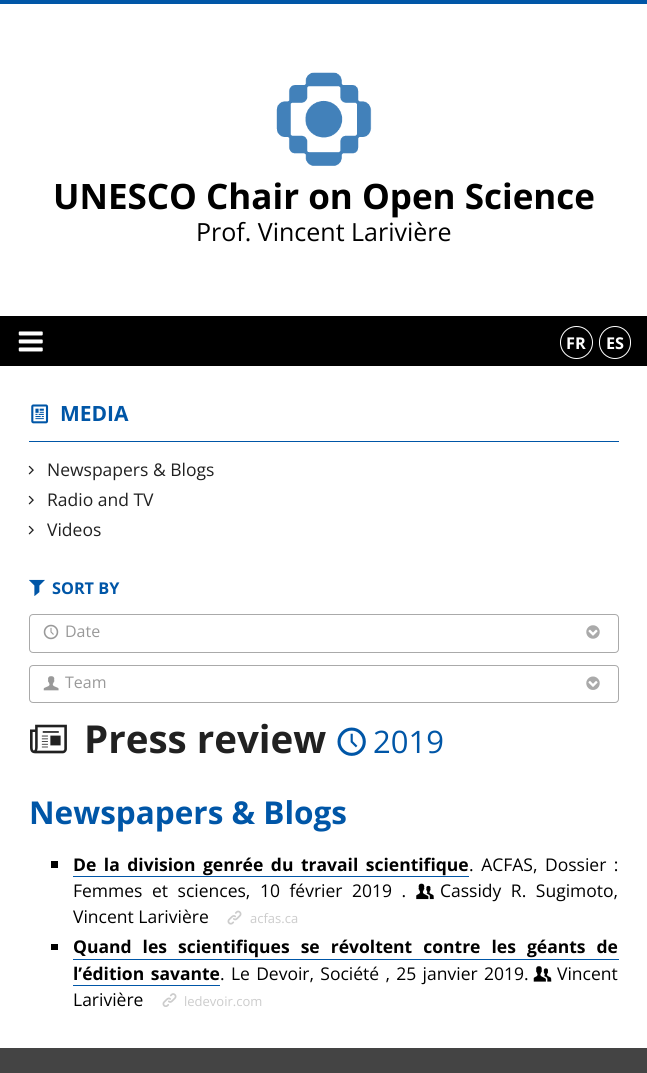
import math
import cairo

surface = cairo.ImageSurface(cairo.FORMAT_RGB24, 647, 1073)
cr = cairo.Context(surface)
options = cairo.FontOptions()
options.set_hint_metrics(cairo.HINT_METRICS_OFF)
options.set_hint_style(cairo.HINT_STYLE_NONE)
cr.set_font_options(options)
cr.set_miter_limit(4)


def rgb(code):
    cr.set_source_rgb(*(v / 255 for v in bytes.fromhex(code[-6:])))


def tracked(x, y, s, letter, word):
    cr.move_to(x, y)
    for ch in s:
        cr.show_text(ch)
        cr.rel_move_to(letter + word * (ch == ' '), 0)


def rrect(x, y, w, h, r):
    cr.new_sub_path()
    for i, (u, v) in enumerate([(x + w - r, y + h - r), (x + r, y + h - r), (x + r, y + r), (x + w - r, y + r)]):
        cr.arc(u, v, r, i * math.pi / 2, (i + 1) * math.pi / 2)
    cr.close_path()


def image(path, x, y, w, h):
    cr.save()
    cr.set_source_surface(cairo.ImageSurface.create_from_png(path), x, y)
    cr.rectangle(x, y, w, h)
    cr.fill()
    cr.restore()


rgb("#ffffff")
cr.paint()
rgb("#0056a7")
cr.rectangle(0, 0, 647, 4)
cr.fill()
image("img/1.png", 276, 72, 96, 94)
rgb("#000000")
cr.rectangle(0, 316, 647, 50)
cr.fill()
image("img/2.png", 18, 331, 25, 21)
cr.arc(576.5, 342.5, 16, 0, 2 * math.pi)
rgb("#ffffff")
cr.set_line_width(1)
cr.stroke()
rrect(599.5, 326.5, 31, 32, 15.5)
cr.stroke()
rgb("#0056a7")
cr.rectangle(29, 441, 590, 1)
cr.fill()
image("img/3.png", 31, 404, 18, 20)
image("img/4.png", 28, 465, 6, 10)
image("img/4.png", 28, 495, 6, 10)
image("img/4.png", 28, 525, 6, 10)
image("img/5.png", 29, 579, 16, 17)
rrect(29.5, 614.5, 589, 38, 3.5)
rgb("#aaaaaa")
cr.stroke()
image("img/6.png", 43, 624, 16, 16)
image("img/7.png", 586, 625, 14, 14)
rrect(29.5, 665.5, 589, 37, 3.5)
cr.stroke()
image("img/8.png", 43, 676, 16, 15)
image("img/9.png", 586, 676, 14, 14)
image("img/10.png", 30, 724, 37, 30)
image("img/11.png", 337, 727, 29, 29)
rgb("#000000")
cr.rectangle(51, 861, 7, 7)
cr.fill()
rgb("#0056a7")
cr.rectangle(73, 876, 396, 1)
cr.fill()
image("img/12.png", 416, 883, 18, 17)
image("img/13.png", 227, 910, 15, 15)
for x, y, w, h, color in [
    (51, 944, 7, 6, "#000000"),
    (73, 959, 546, 1, "#0056a7"),
    (73, 985, 147, 1, "#0056a7"),
]:
    rgb(color)
    cr.rectangle(x, y, w, h)
    cr.fill()
image("img/14.png", 533, 966, 19, 16)
image("img/15.png", 162, 993, 15, 14)
rgb("#444444")
cr.rectangle(0, 1048, 647, 25)
cr.fill()
cr.select_font_face("Open Sans", cairo.FONT_SLANT_NORMAL, cairo.FONT_WEIGHT_BOLD)
cr.set_font_size(35)
rgb("#000000")
cr.move_to(53, 209)
cr.show_text("UNESCO Chair on Open Science")
cr.select_font_face("Open Sans")
cr.set_font_size(25)
cr.move_to(196, 241)
cr.show_text("Prof. Vincent Larivière")
cr.select_font_face("Open Sans", cairo.FONT_SLANT_NORMAL, cairo.FONT_WEIGHT_BOLD)
cr.set_font_size(16.25)
rgb("#ffffff")
cr.move_to(566, 349)
cr.show_text("FR")
cr.move_to(606, 349)
cr.show_text("ES")
cr.set_font_size(21)
rgb("#0056a7")
cr.move_to(60, 421)
cr.show_text("MEDIA")
cr.select_font_face("Open Sans")
cr.set_font_size(17.5)
rgb("#212121")
for x, y, s in [
    (47, 476, "Newspapers & Blogs"),
    (47, 506, "Radio and TV"),
    (47, 536, "Videos"),
]:
    cr.move_to(x, y)
    cr.show_text(s)
cr.select_font_face("Open Sans", cairo.FONT_SLANT_NORMAL, cairo.FONT_WEIGHT_BOLD)
cr.set_font_size(16.25)
rgb("#0056a7")
cr.move_to(52, 594)
cr.show_text("SORT BY")
cr.select_font_face("Open Sans")
cr.set_font_size(16)
rgb("#999999")
cr.move_to(65, 637)
cr.show_text("Date")
cr.move_to(65, 688)
cr.show_text("Team")
cr.select_font_face("Open Sans", cairo.FONT_SLANT_NORMAL, cairo.FONT_WEIGHT_BOLD)
cr.set_font_size(38.5)
rgb("#212121")
cr.move_to(84, 753)
cr.show_text("Press review")
cr.select_font_face("Open Sans")
cr.set_font_size(31)
rgb("#0056a7")
cr.move_to(373, 753)
cr.show_text("2019")
cr.select_font_face("Open Sans", cairo.FONT_SLANT_NORMAL, cairo.FONT_WEIGHT_BOLD)
cr.set_font_size(31.5)
cr.move_to(29, 824)
cr.show_text("Newspapers & Blogs")
cr.set_font_size(17.5)
rgb("#000000")
tracked(73, 871, "De la division genrée du travail scientifique", 0, 3)
cr.select_font_face("Open Sans")
tracked(469, 871, ". ACFAS, Dossier :", 0, 3)
tracked(440, 897, "Cassidy R. Sugimoto,", 0, 5)
cr.move_to(73, 923)
cr.show_text("Vincent Larivière")
tracked(73, 897, "Femmes et sciences, 10 février 2019 .", 0, 5)
cr.set_font_size(13)
rgb("#cccccc")
cr.move_to(250, 923)
cr.show_text("acfas.ca")
cr.select_font_face("Open Sans", cairo.FONT_SLANT_NORMAL, cairo.FONT_WEIGHT_BOLD)
cr.set_font_size(17.5)
rgb("#000000")
tracked(73, 953, "Quand les scientifiques se révoltent contre les géants de", 0, 6.5)
tracked(73, 980, "l’édition savante", 0, 2)
cr.select_font_face("Open Sans")
tracked(220, 980, ". Le Devoir, Société , 25 janvier 2019.", 0, 1.75)
cr.move_to(557, 980)
cr.show_text("Vincent")
cr.move_to(73, 1006)
cr.show_text("Larivière")
cr.set_font_size(13)
rgb("#cccccc")
cr.move_to(184, 1006)
cr.show_text("ledevoir.com")
surface.write_to_png("page.png")
